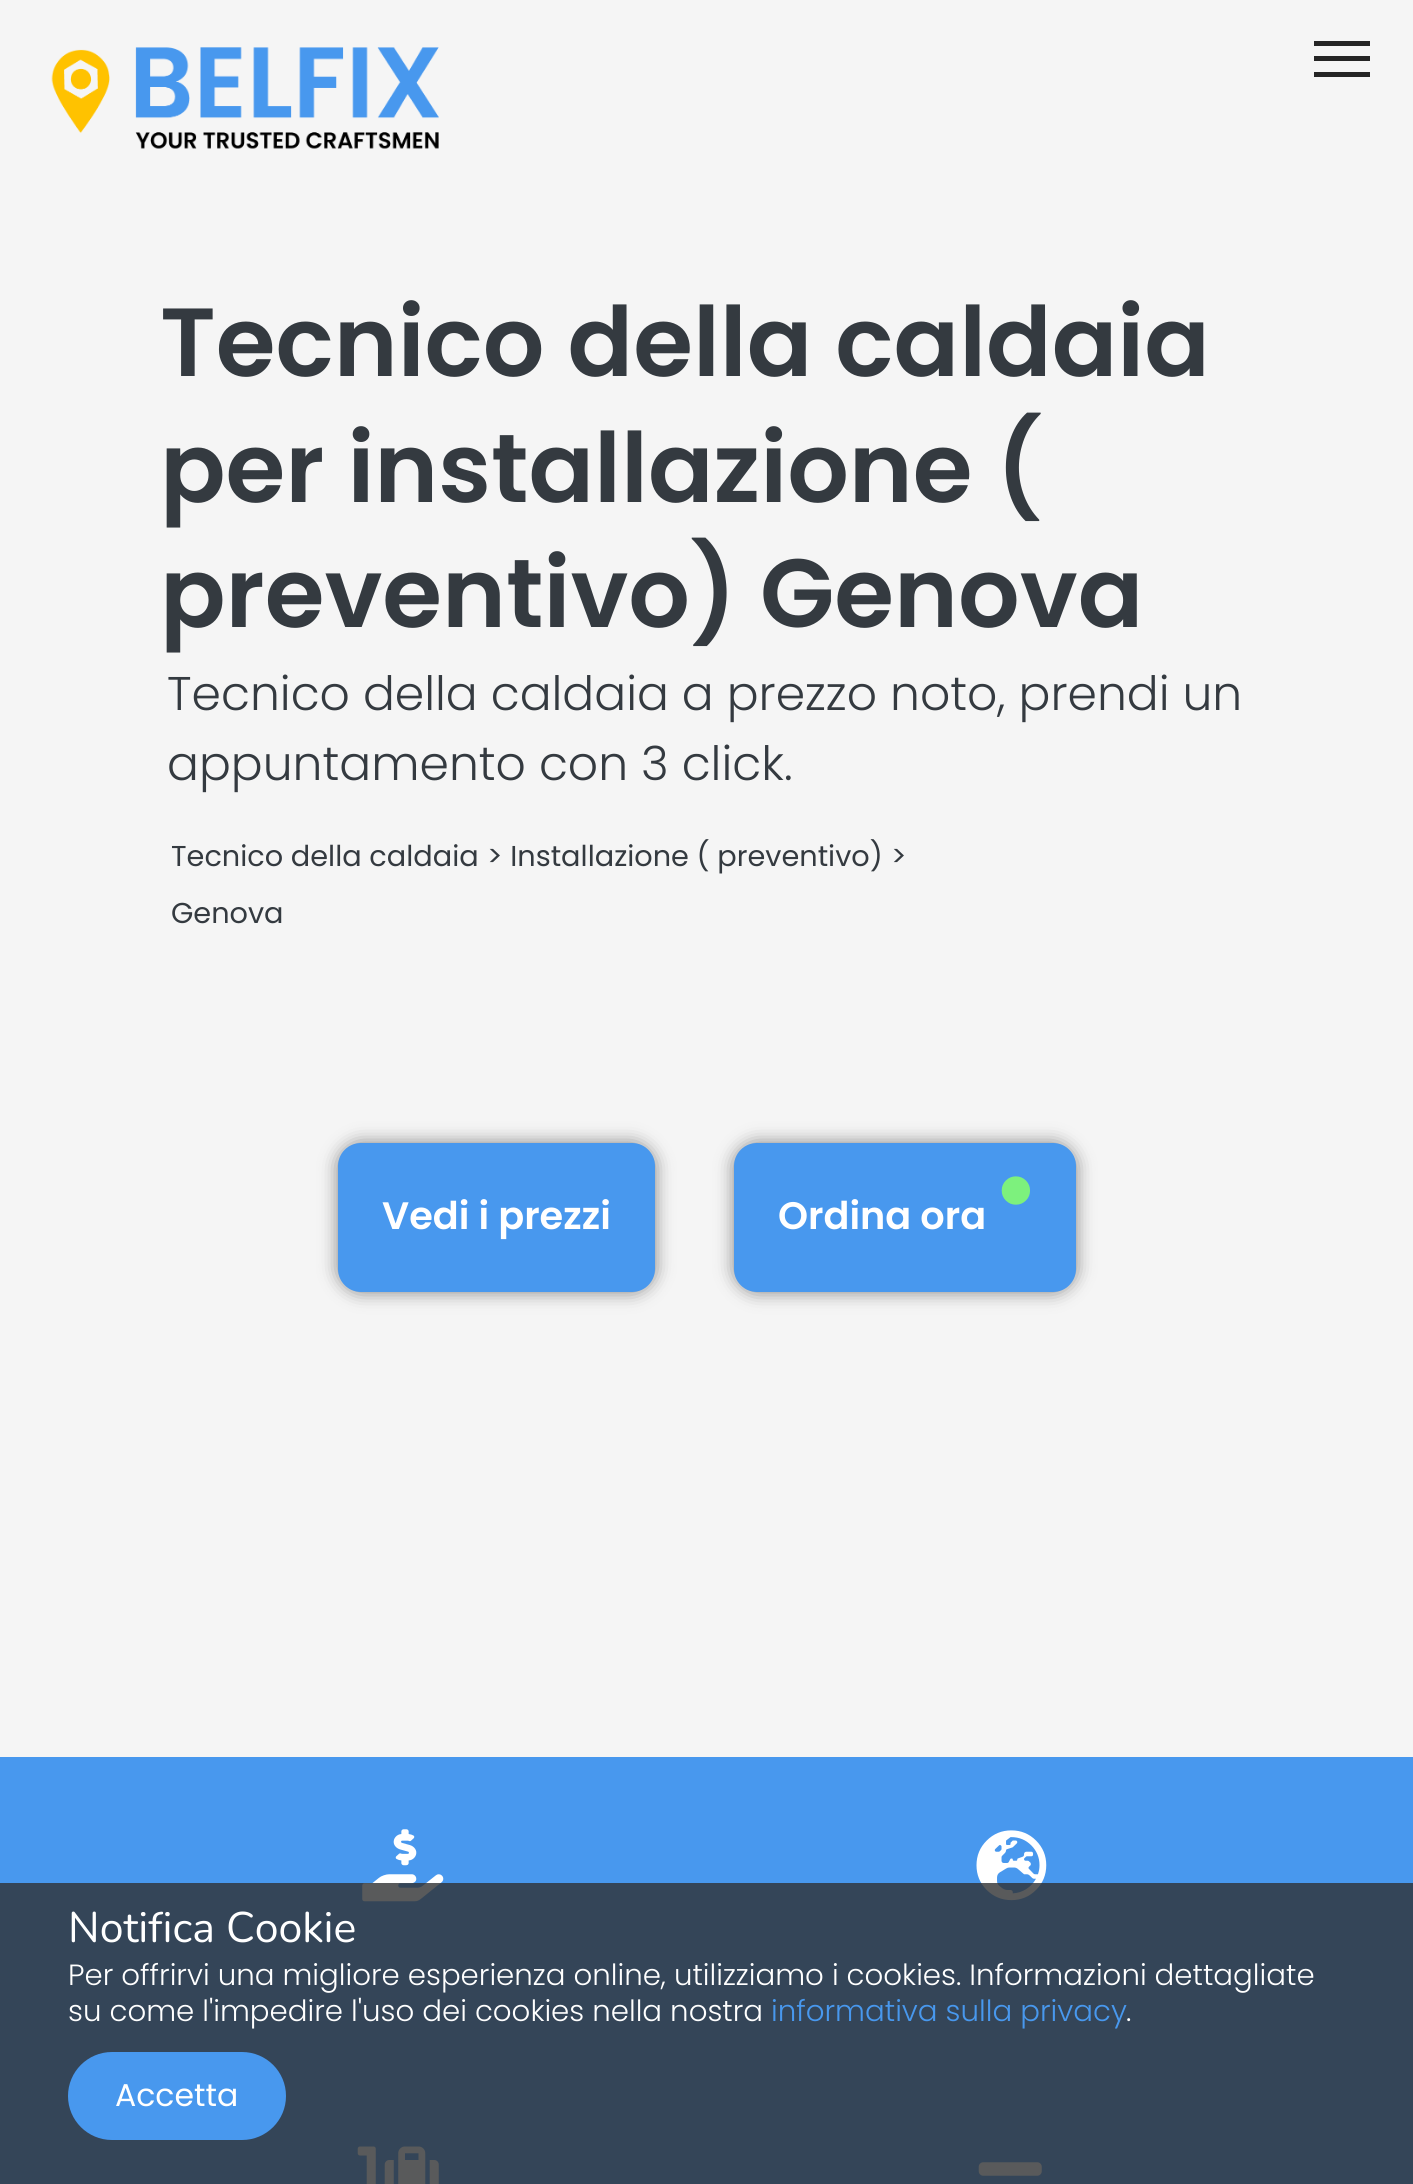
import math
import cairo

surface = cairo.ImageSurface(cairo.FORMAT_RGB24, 1413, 2184)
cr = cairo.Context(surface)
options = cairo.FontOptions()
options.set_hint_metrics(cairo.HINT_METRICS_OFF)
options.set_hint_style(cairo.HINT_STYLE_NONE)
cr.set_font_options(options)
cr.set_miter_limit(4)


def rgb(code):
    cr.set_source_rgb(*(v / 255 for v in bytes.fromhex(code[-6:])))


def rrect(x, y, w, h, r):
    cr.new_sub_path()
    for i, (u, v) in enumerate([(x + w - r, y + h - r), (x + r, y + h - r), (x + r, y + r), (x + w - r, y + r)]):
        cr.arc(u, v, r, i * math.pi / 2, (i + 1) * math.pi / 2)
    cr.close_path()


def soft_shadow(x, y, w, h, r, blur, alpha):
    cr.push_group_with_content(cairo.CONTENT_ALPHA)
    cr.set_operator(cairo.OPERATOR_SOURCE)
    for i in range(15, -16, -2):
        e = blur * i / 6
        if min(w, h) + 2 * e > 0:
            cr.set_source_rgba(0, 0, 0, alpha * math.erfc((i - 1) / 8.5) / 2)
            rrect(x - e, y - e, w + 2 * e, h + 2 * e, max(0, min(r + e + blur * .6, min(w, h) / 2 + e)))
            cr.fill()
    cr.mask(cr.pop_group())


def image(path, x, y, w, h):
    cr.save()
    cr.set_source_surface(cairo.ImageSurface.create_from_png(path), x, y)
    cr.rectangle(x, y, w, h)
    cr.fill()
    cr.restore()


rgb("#f5f5f5")
cr.paint()
image("img/1.png", 51, 47, 388, 102)
for x, y, w, h, color in [
    (1314, 56, 56, 5, "#252525"),
    (1314, 41, 56, 5, "#252525"),
    (1314, 72, 56, 5, "#252525"),
]:
    rgb(color)
    cr.rectangle(x, y, w, h)
    cr.fill()
rgb("#000000")
soft_shadow(338, 1143, 317, 149, 23, 9, 0.47)
rgb("#4898ee")
rrect(338, 1143, 317, 149, 23)
cr.fill()
rgb("#000000")
soft_shadow(734, 1143, 342, 149, 23, 9, 0.47)
rgb("#4898ee")
rrect(734, 1143, 342, 149, 23)
cr.fill()
image("img/2.png", 1001, 1176, 29, 29)
cr.rectangle(0, 1757, 1413, 427)
cr.fill()
image("img/3.png", 362, 1829, 82, 73)
image("img/4.png", 976, 1830, 71, 71)
image("img/5.png", 357, 2146, 82, 38)
image("img/6.png", 978, 2162, 64, 14)
cr.set_source_rgba(0.188, 0.192, 0.2, 0.8)
cr.rectangle(0, 1883, 1413, 301)
cr.fill()
rgb("#4898ee")
rrect(69, 2053, 216, 86, 43)
cr.fill_preserve()
cr.stroke()
cr.select_font_face("Poppins SemiBold")
cr.set_font_size(96.75)
rgb("#343a40")
for x, y, s in [
    (160, 376, "Tecnico della caldaia"),
    (160, 502, "per installazione ("),
    (160, 627, "preventivo) Genova"),
]:
    cr.move_to(x, y)
    cr.show_text(s)
cr.select_font_face("Poppins Light")
cr.set_font_size(47.25)
cr.move_to(167, 710)
cr.show_text("Tecnico della caldaia a prezzo noto, prendi un")
cr.move_to(167, 780)
cr.show_text("appuntamento con 3 click.")
cr.select_font_face("Poppins")
cr.set_font_size(28.75)
for x, y, s in [
    (171, 866, "Tecnico della caldaia"),
    (487, 866, "> Installazione ( preventivo)"),
    (891, 866, ">"),
    (171, 923, "Genova"),
]:
    cr.move_to(x, y)
    cr.show_text(s)
cr.select_font_face("Poppins SemiBold")
cr.set_font_size(38.25)
rgb("#ffffff")
cr.move_to(382, 1229)
cr.show_text("Vedi i prezzi")
cr.move_to(778, 1229)
cr.show_text("Ordina ora")
cr.select_font_face("Nunito")
cr.set_font_size(42.75)
cr.move_to(68, 1942)
cr.show_text("Notifica Cookie")
cr.select_font_face("Poppins Light")
cr.set_font_size(29.25)
cr.move_to(68, 1985)
cr.show_text("Per offrirvi una migliore esperienza online, utilizziamo i cookies. Informazioni dettagliate")
cr.move_to(68, 2021)
cr.show_text("su come l'impedire l'uso dei cookies nella nostra")
rgb("#4898ee")
cr.move_to(771, 2021)
cr.show_text("informativa sulla privacy")
rgb("#ffffff")
cr.move_to(1126, 2021)
cr.show_text(".")
cr.select_font_face("Poppins")
cr.set_font_size(31.5)
cr.move_to(115, 2106)
cr.show_text("Accetta")
surface.write_to_png("page.png")
